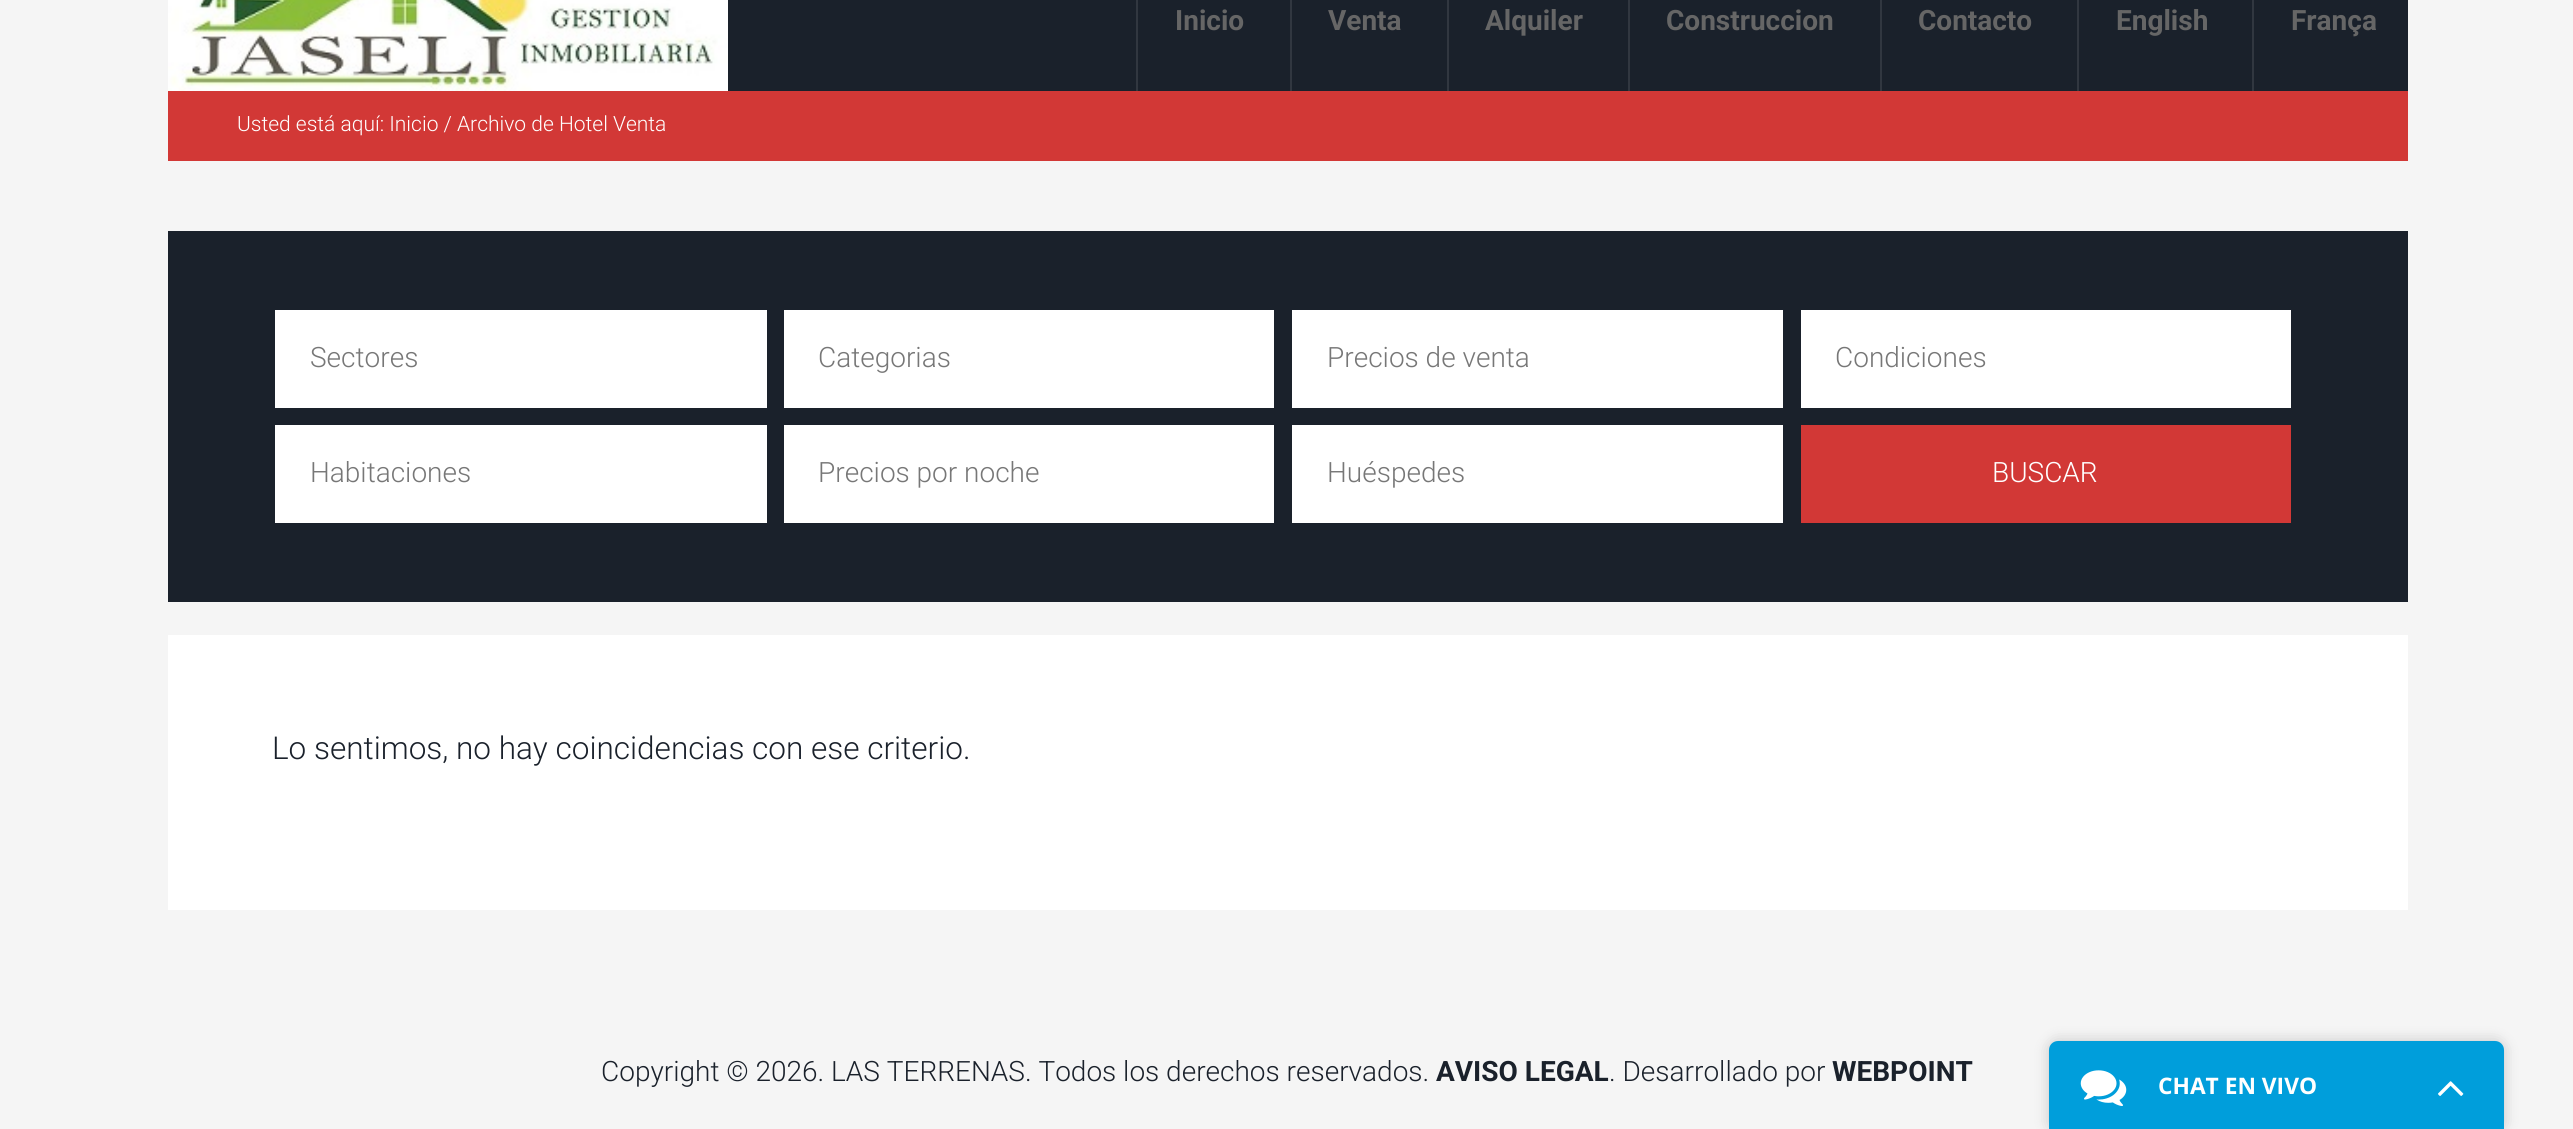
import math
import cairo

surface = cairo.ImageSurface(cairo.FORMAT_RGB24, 2573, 1129)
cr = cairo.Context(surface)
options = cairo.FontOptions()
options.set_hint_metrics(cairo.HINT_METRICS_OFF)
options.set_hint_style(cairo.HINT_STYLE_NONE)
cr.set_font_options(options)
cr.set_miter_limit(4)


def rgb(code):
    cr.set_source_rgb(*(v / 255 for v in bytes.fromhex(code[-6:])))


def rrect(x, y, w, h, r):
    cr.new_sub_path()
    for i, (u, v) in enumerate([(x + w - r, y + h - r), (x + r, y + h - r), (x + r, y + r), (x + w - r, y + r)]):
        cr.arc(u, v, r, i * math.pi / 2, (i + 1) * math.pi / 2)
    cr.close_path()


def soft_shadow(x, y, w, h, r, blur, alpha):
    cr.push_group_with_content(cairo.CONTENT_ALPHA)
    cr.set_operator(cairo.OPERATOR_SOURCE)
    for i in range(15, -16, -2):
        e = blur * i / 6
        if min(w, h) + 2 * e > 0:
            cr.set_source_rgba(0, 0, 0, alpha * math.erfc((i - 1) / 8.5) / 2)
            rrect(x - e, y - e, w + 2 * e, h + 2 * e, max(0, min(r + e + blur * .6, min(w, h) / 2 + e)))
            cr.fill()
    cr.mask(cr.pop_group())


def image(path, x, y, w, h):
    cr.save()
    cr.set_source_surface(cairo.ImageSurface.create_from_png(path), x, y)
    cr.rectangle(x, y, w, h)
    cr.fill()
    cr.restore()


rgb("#f5f5f5")
cr.paint()
rgb("#1a212b")
cr.rectangle(728, 0, 1680, 91)
cr.fill()
image("img/1.png", 168, 0, 560, 91)
for x, y, w, h, color in [
    (1136, 0, 2, 91, "#313740"),
    (1290, 0, 2, 91, "#313740"),
    (1447, 0, 2, 91, "#313740"),
    (1628, 0, 2, 91, "#313740"),
    (1880, 0, 2, 91, "#313740"),
    (2077, 0, 2, 91, "#313740"),
    (2252, 0, 2, 91, "#313740"),
    (168, 91, 2240, 70, "#d23836"),
    (168, 231, 2240, 371, "#1a212b"),
    (275, 310, 492, 98, "#ffffff"),
    (784, 310, 490, 98, "#ffffff"),
    (1292, 310, 491, 98, "#ffffff"),
    (1801, 310, 490, 98, "#ffffff"),
    (275, 425, 492, 98, "#ffffff"),
    (784, 425, 490, 98, "#ffffff"),
    (1292, 425, 491, 98, "#ffffff"),
    (1801, 425, 490, 98, "#d23836"),
    (168, 635, 2240, 275, "#ffffff"),
]:
    rgb(color)
    cr.rectangle(x, y, w, h)
    cr.fill()
rgb("#000000")
soft_shadow(2049, 1041, 455, 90, 9, 7, 0.2)
rgb("#009edb")
cr.new_path()
cr.move_to(2058, 1041)
cr.line_to(2495, 1041)
cr.curve_to(2500, 1041, 2504, 1045, 2504, 1050)
cr.line_to(2504, 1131)
cr.line_to(2049, 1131)
cr.line_to(2049, 1050)
cr.curve_to(2049, 1045, 2053, 1041, 2058, 1041)
cr.close_path()
cr.fill()
image("img/2.png", 2080, 1070, 47, 36)
image("img/3.png", 2438, 1081, 26, 15)
cr.select_font_face("Roboto", cairo.FONT_SLANT_NORMAL, cairo.FONT_WEIGHT_BOLD)
cr.set_font_size(28)
rgb("#666666")
for x, y, s in [
    (1175, 30, "Inicio"),
    (1328, 30, "Venta"),
    (1485, 30, "Alquiler"),
    (1666, 30, "Construccion"),
    (1918, 30, "Contacto"),
    (2116, 30, "English"),
    (2291, 30, "França"),
]:
    cr.move_to(x, y)
    cr.show_text(s)
cr.select_font_face("Roboto Light")
cr.set_font_size(21)
rgb("#ffffff")
cr.move_to(237, 131)
cr.show_text("Usted está aquí: Inicio / Archivo de Hotel Venta")
cr.set_font_size(28)
rgb("#777777")
for x, y, s in [
    (310, 367, "Sectores"),
    (818, 367, "Categorias"),
    (1327, 367, "Precios de venta"),
    (1835, 367, "Condiciones"),
    (310, 482, "Habitaciones"),
    (818, 482, "Precios por noche"),
    (1327, 482, "Huéspedes"),
]:
    cr.move_to(x, y)
    cr.show_text(s)
rgb("#ffffff")
cr.move_to(1992, 482)
cr.show_text("BUSCAR")
cr.set_font_size(31.5)
rgb("#1a212b")
cr.move_to(272, 759)
cr.show_text("Lo sentimos, no hay coincidencias con ese criterio.")
cr.set_font_size(28)
cr.move_to(601, 1081)
cr.show_text("Copyright © 2026. LAS TERRENAS. Todos los derechos reservados.")
cr.select_font_face("Roboto", cairo.FONT_SLANT_NORMAL, cairo.FONT_WEIGHT_BOLD)
cr.move_to(1436, 1081)
cr.show_text("AVISO LEGAL")
cr.select_font_face("Roboto Light")
cr.move_to(1609, 1081)
cr.show_text(". Desarrollado por")
cr.select_font_face("Roboto", cairo.FONT_SLANT_NORMAL, cairo.FONT_WEIGHT_BOLD)
cr.move_to(1832, 1081)
cr.show_text("WEBPOINT")
cr.select_font_face("Open Sans", cairo.FONT_SLANT_NORMAL, cairo.FONT_WEIGHT_BOLD)
cr.set_font_size(22.75)
rgb("#ffffff")
cr.move_to(2158, 1094)
cr.show_text("CHAT EN VIVO")
surface.write_to_png("page.png")
